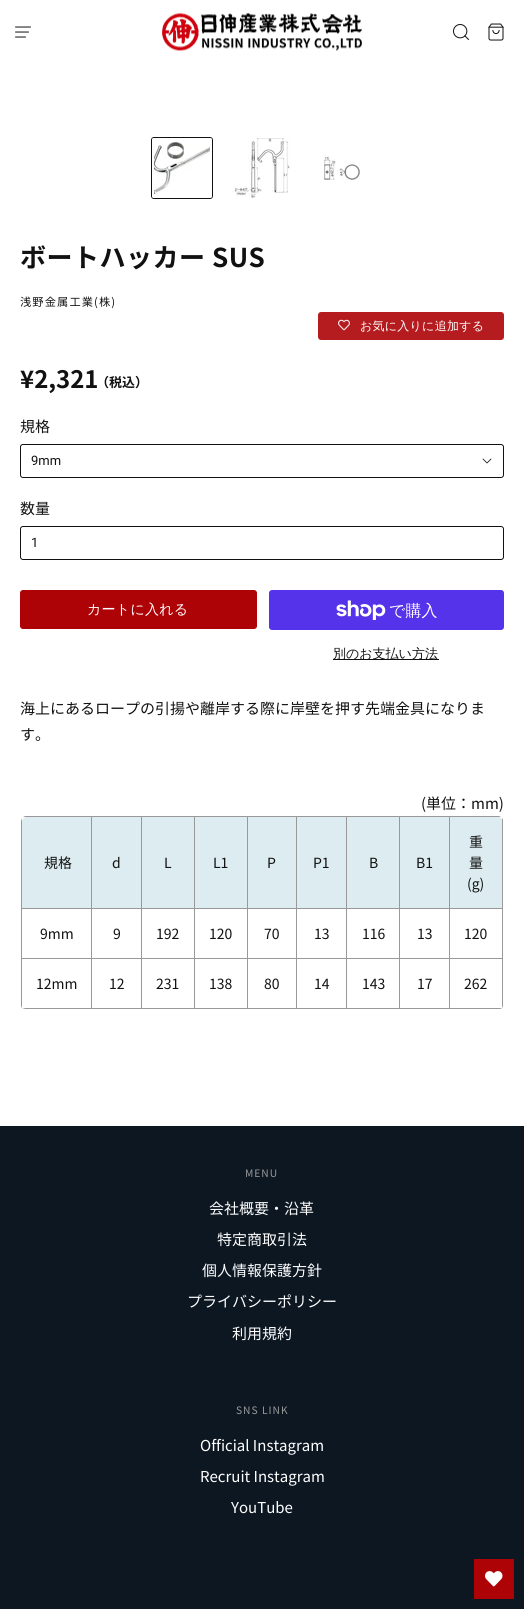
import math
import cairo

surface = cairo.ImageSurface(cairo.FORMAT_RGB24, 524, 1609)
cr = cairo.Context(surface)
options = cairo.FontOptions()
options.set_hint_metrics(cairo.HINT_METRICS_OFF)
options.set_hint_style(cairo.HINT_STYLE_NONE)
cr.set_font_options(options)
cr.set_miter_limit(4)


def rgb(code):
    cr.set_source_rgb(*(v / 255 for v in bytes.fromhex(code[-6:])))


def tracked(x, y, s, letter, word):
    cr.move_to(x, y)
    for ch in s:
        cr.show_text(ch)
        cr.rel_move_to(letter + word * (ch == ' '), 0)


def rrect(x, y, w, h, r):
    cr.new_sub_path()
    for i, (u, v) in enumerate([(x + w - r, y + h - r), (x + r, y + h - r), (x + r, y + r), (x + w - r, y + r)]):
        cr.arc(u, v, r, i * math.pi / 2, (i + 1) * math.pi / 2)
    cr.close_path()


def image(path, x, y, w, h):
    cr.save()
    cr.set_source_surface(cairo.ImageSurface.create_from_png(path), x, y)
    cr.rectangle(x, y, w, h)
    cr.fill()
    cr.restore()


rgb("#ffffff")
cr.paint()
image("img/1.png", 15, 26, 16, 12)
image("img/2.png", 162, 13, 200, 38)
image("img/3.png", 453, 24, 16, 16)
image("img/4.png", 488, 23, 16, 18)
image("img/5.png", 154, 142, 56, 54)
rrect(151.5, 137.5, 61, 61, 2.5)
rgb("#111111")
cr.set_line_width(1)
cr.stroke()
rrect(153, 139, 58, 58, 1)
rgb("#ffffff")
cr.set_line_width(2)
cr.stroke()
image("img/6.png", 232, 138, 59, 60)
image("img/7.png", 324, 155, 36, 25)
rgb("#b51c1f")
rrect(318, 312, 186, 28, 3)
cr.fill()
image("img/8.png", 338, 319, 12, 12)
rrect(20.5, 444.5, 483, 33, 2.5)
rgb("#111111")
cr.set_line_width(1)
cr.stroke()
cr.new_path()
cr.move_to(483, 459)
cr.line_to(487, 463)
cr.line_to(491, 459)
cr.set_line_width(0.8)
cr.set_line_cap(cairo.LINE_CAP_ROUND)
cr.set_line_join(cairo.LINE_JOIN_ROUND)
cr.stroke()
rrect(20.5, 526.5, 483, 33, 2.5)
cr.set_line_width(1)
cr.set_line_cap(cairo.LINE_CAP_BUTT)
cr.set_line_join(cairo.LINE_JOIN_MITER)
cr.stroke()
rgb("#ad0306")
rrect(20.5, 590.5, 236, 38, 2.5)
cr.fill_preserve()
cr.stroke()
rgb("#5433eb")
rrect(269, 590, 235, 40, 3)
cr.fill()
image("img/9.png", 336, 600, 50, 20)
rgb("#111111")
cr.rectangle(333, 659, 106, 1)
cr.fill()
rgb("#ddecf0")
cr.new_path()
cr.move_to(27, 817)
cr.line_to(92, 817)
cr.line_to(92, 909)
cr.line_to(22, 909)
cr.line_to(22, 822)
cr.curve_to(22, 819, 24, 817, 27, 817)
cr.close_path()
cr.fill()
rgb("#999999")
cr.new_path()
cr.move_to(449, 816)
cr.line_to(449, 817)
cr.line_to(501, 817)
cr.line_to(499, 816)
cr.close_path()
cr.fill()
rgb("#ddecf0")
cr.new_path()
cr.move_to(450, 817)
cr.line_to(498, 817)
cr.curve_to(501, 817, 503, 819, 503, 822)
cr.line_to(503, 909)
cr.line_to(450, 909)
cr.close_path()
cr.fill()
rgb("#999999")
cr.rectangle(449, 908, 54, 1)
cr.fill()
cr.rectangle(449, 958, 54, 1)
cr.fill()
cr.new_path()
cr.move_to(502, 958)
cr.line_to(502, 1008)
cr.curve_to(503, 1007, 503, 1006, 503, 1005)
cr.line_to(503, 958)
cr.close_path()
cr.move_to(449, 1008)
cr.line_to(449, 1009)
cr.line_to(499, 1009)
cr.curve_to(500, 1009, 501, 1009, 502, 1008)
cr.close_path()
cr.fill()
for x, y, w, h, color in [
    (449, 958, 1, 51, "#999999"),
    (399, 958, 51, 1, "#999999"),
    (449, 908, 1, 51, "#999999"),
    (399, 908, 51, 1, "#999999"),
    (449, 816, 1, 93, "#999999"),
    (399, 816, 51, 1, "#999999"),
    (399, 1008, 51, 1, "#999999"),
    (399, 958, 1, 51, "#999999"),
    (346, 958, 54, 1, "#999999"),
    (399, 908, 1, 51, "#999999"),
    (346, 908, 54, 1, "#999999"),
    (399, 816, 1, 93, "#999999"),
    (346, 816, 54, 1, "#999999"),
    (346, 1008, 54, 1, "#999999"),
    (346, 958, 1, 51, "#999999"),
    (296, 958, 51, 1, "#999999"),
    (346, 908, 1, 51, "#999999"),
    (296, 908, 51, 1, "#999999"),
    (346, 816, 1, 93, "#999999"),
    (296, 816, 51, 1, "#999999"),
    (296, 1008, 51, 1, "#999999"),
    (296, 958, 1, 51, "#999999"),
    (247, 958, 50, 1, "#999999"),
    (296, 908, 1, 51, "#999999"),
    (247, 908, 50, 1, "#999999"),
    (296, 816, 1, 93, "#999999"),
    (247, 816, 50, 1, "#999999"),
    (247, 1008, 50, 1, "#999999"),
    (247, 958, 1, 51, "#999999"),
    (194, 958, 54, 1, "#999999"),
    (247, 908, 1, 51, "#999999"),
    (194, 908, 54, 1, "#999999"),
    (247, 816, 1, 93, "#999999"),
    (194, 816, 54, 1, "#999999"),
    (194, 1008, 54, 1, "#999999"),
    (194, 958, 1, 51, "#999999"),
    (141, 958, 54, 1, "#999999"),
    (194, 908, 1, 51, "#999999"),
    (141, 908, 54, 1, "#999999"),
    (194, 816, 1, 93, "#999999"),
    (141, 816, 54, 1, "#999999"),
    (141, 1008, 54, 1, "#999999"),
    (141, 958, 1, 51, "#999999"),
    (91, 958, 51, 1, "#999999"),
    (141, 908, 1, 51, "#999999"),
    (91, 908, 51, 1, "#999999"),
    (141, 816, 1, 93, "#999999"),
    (91, 816, 51, 1, "#999999"),
    (91, 1008, 51, 1, "#999999"),
    (91, 958, 1, 51, "#999999"),
    (21, 958, 71, 1, "#999999"),
    (91, 908, 1, 51, "#999999"),
    (21, 908, 71, 1, "#999999"),
    (91, 816, 1, 93, "#999999"),
]:
    rgb(color)
    cr.rectangle(x, y, w, h)
    cr.fill()
cr.new_path()
cr.move_to(25, 816)
cr.line_to(23, 817)
cr.line_to(92, 817)
cr.line_to(92, 816)
cr.close_path()
cr.fill()
cr.new_path()
cr.move_to(21, 958)
cr.line_to(21, 1005)
cr.curve_to(21, 1006, 21, 1007, 22, 1008)
cr.line_to(22, 958)
cr.close_path()
cr.fill()
cr.rectangle(21, 908, 1, 51)
cr.fill()
cr.new_path()
cr.move_to(21, 821)
cr.line_to(21, 909)
cr.line_to(22, 909)
cr.line_to(22, 818)
cr.close_path()
cr.fill()
for x, y, w, h, color in [
    (92, 817, 49, 91, "#ddecf0"),
    (142, 817, 52, 91, "#ddecf0"),
    (195, 817, 52, 91, "#ddecf0"),
    (248, 817, 48, 91, "#ddecf0"),
    (297, 817, 49, 91, "#ddecf0"),
    (347, 817, 52, 91, "#ddecf0"),
    (400, 817, 49, 91, "#ddecf0"),
    (502, 908, 1, 51, "#999999"),
]:
    rgb(color)
    cr.rectangle(x, y, w, h)
    cr.fill()
cr.new_path()
cr.move_to(503, 909)
cr.line_to(503, 821)
cr.curve_to(503, 820, 503, 819, 502, 818)
cr.line_to(502, 909)
cr.close_path()
cr.fill()
cr.new_path()
cr.move_to(25, 1009)
cr.line_to(92, 1009)
cr.line_to(92, 1008)
cr.line_to(22, 1008)
cr.close_path()
cr.fill()
rgb("#0d1722")
cr.rectangle(0, 1126, 524, 483)
cr.fill()
rgb("#ad0306")
cr.rectangle(474, 1559, 40, 40)
cr.fill()
image("img/10.png", 485, 1571, 18, 16)
cr.select_font_face("Noto Sans JP", cairo.FONT_SLANT_NORMAL, cairo.FONT_WEIGHT_BOLD)
cr.set_font_size(26)
rgb("#111111")
tracked(20, 267, "ボートハッカー SUS", 0.5, 0)
cr.select_font_face("Noto Sans JP")
cr.set_font_size(11.25)
tracked(20, 306, "浅野金属工業(株)", 1.1, 0)
cr.select_font_face("WenQuanYi Zen Hei Medium")
cr.set_font_size(12)
rgb("#ffffff")
tracked(360, 330, "お気に入りに追加する", 0.25, 0)
cr.select_font_face("Noto Sans JP", cairo.FONT_SLANT_NORMAL, cairo.FONT_WEIGHT_BOLD)
cr.set_font_size(24)
rgb("#111111")
cr.move_to(20, 388)
cr.show_text("¥2,321")
cr.set_font_size(13)
cr.move_to(96, 387)
cr.show_text("（税込）")
cr.select_font_face("Noto Sans JP")
cr.set_font_size(15)
cr.move_to(20, 432)
cr.show_text("規格")
cr.select_font_face("Roboto")
cr.set_font_size(13)
cr.move_to(31, 465)
cr.show_text("9mm")
cr.select_font_face("Noto Sans JP")
cr.set_font_size(15)
cr.move_to(20, 514)
cr.show_text("数量")
cr.select_font_face("Roboto")
cr.set_font_size(13)
cr.move_to(31, 547)
cr.show_text("1")
cr.select_font_face("WenQuanYi Zen Hei Medium")
cr.set_font_size(14)
rgb("#ffffff")
tracked(87, 614, "カートに入れる", 0.25, 0)
cr.set_font_size(16)
cr.move_to(389, 616)
cr.show_text("で購入")
cr.set_font_size(13)
rgb("#111111")
cr.move_to(333, 658)
cr.show_text("別のお支払い方法")
cr.select_font_face("Noto Sans JP")
cr.set_font_size(15)
for x, y, s in [
    (20, 714, "海上にあるロープの引揚や離岸する際に岸壁を押す先端金具になりま"),
    (20, 740, "す。"),
    (421, 809, "(単位：mm)"),
]:
    cr.move_to(x, y)
    cr.show_text(s)
cr.set_font_size(14)
for x, y, s in [
    (44, 868, "規格"),
    (112, 868, "d"),
    (164, 868, "L"),
    (213, 868, "L1"),
    (267, 868, "P"),
    (313, 868, "P1"),
    (369, 868, "B"),
    (416, 868, "B1"),
    (469, 847, "重"),
    (469, 868, "量"),
    (467, 889, "(g)"),
    (40, 939, "9mm"),
    (113, 939, "9"),
    (156, 939, "192"),
    (209, 939, "120"),
    (264, 939, "70"),
    (314, 939, "13"),
    (362, 939, "116"),
    (417, 939, "13"),
    (464, 939, "120"),
    (36, 989, "12mm"),
    (109, 989, "12"),
    (156, 989, "231"),
    (209, 989, "138"),
    (264, 989, "80"),
    (314, 989, "14"),
    (362, 989, "143"),
    (417, 989, "17"),
    (464, 989, "262"),
]:
    cr.move_to(x, y)
    cr.show_text(s)
cr.set_font_size(10.25)
rgb("#999999")
tracked(245, 1177, "MENU", 1, 0)
cr.set_font_size(15)
rgb("#ffffff")
for x, y, s in [
    (209, 1214, "会社概要・沿革"),
    (217, 1245, "特定商取引法"),
    (202, 1276, "個人情報保護方針"),
    (187, 1307, "プライバシーポリシー"),
    (232, 1339, "利用規約"),
]:
    cr.move_to(x, y)
    cr.show_text(s)
cr.set_font_size(10.25)
rgb("#999999")
tracked(236, 1414, "SNS LINK", 1, 0)
cr.set_font_size(15)
rgb("#ffffff")
for x, y, s in [
    (200, 1451, "Official Instagram"),
    (200, 1482, "Recruit Instagram"),
    (231, 1513, "YouTube"),
]:
    cr.move_to(x, y)
    cr.show_text(s)
surface.write_to_png("page.png")
